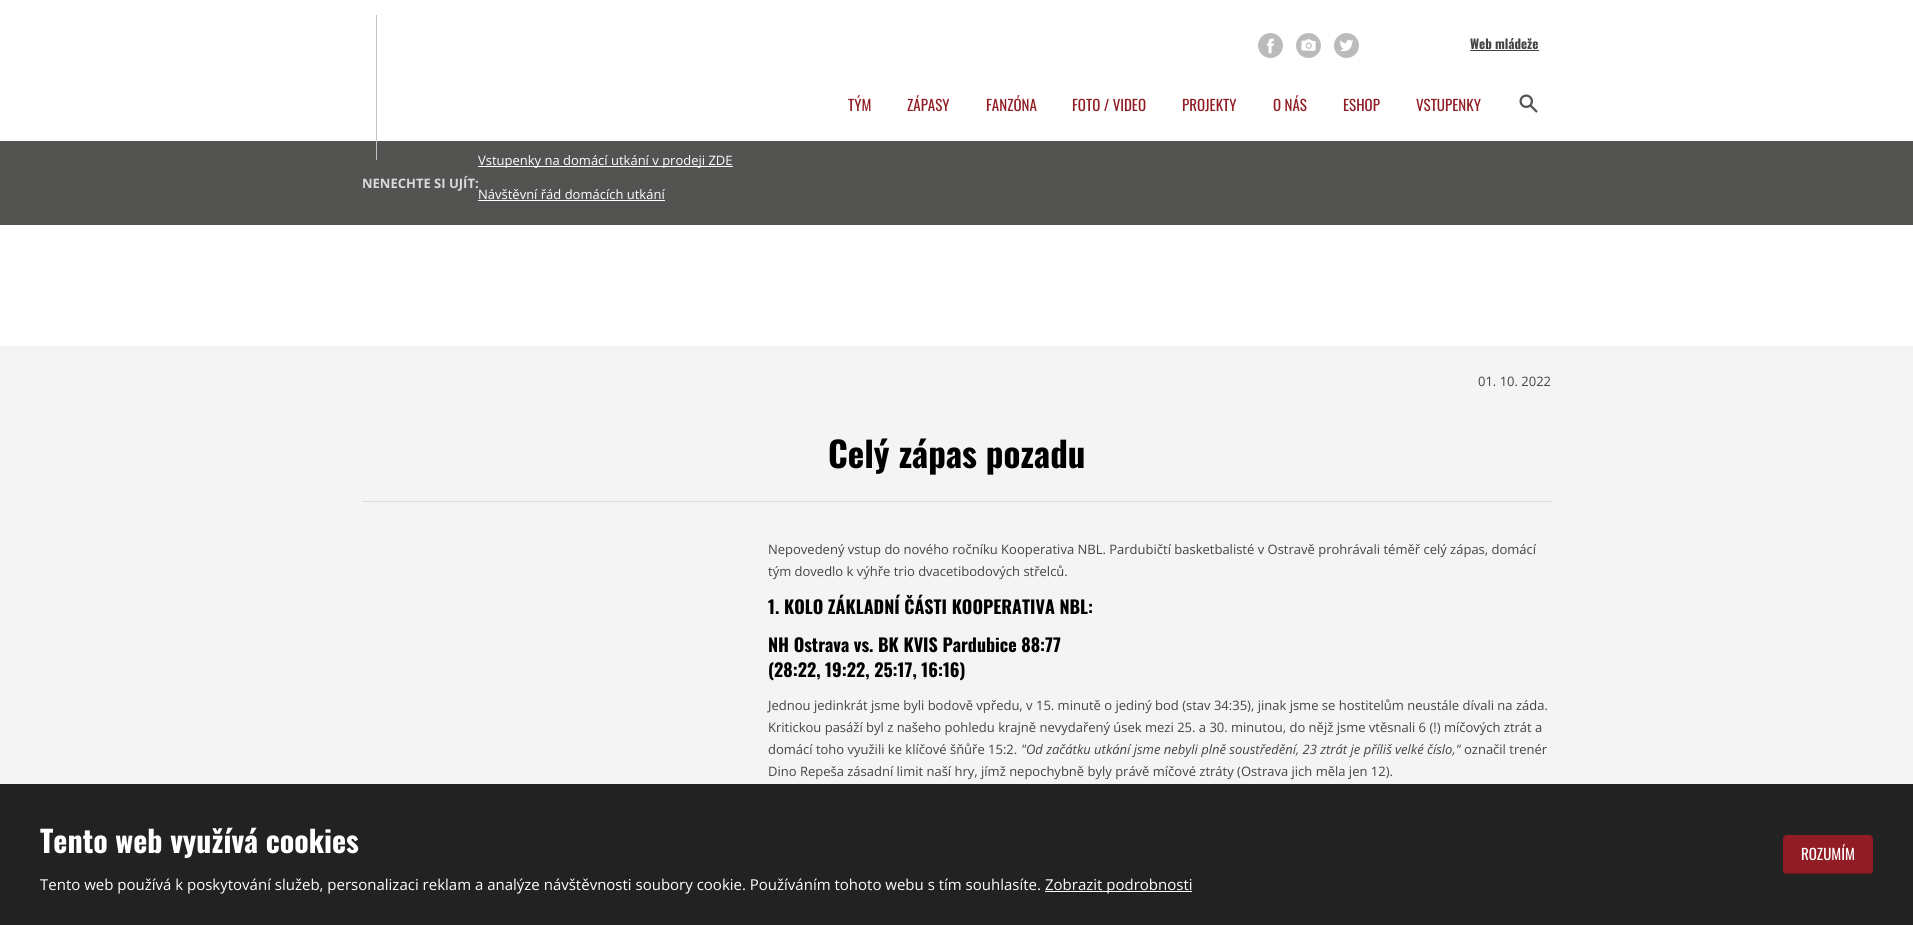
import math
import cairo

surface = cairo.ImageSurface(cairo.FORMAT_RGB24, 1913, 925)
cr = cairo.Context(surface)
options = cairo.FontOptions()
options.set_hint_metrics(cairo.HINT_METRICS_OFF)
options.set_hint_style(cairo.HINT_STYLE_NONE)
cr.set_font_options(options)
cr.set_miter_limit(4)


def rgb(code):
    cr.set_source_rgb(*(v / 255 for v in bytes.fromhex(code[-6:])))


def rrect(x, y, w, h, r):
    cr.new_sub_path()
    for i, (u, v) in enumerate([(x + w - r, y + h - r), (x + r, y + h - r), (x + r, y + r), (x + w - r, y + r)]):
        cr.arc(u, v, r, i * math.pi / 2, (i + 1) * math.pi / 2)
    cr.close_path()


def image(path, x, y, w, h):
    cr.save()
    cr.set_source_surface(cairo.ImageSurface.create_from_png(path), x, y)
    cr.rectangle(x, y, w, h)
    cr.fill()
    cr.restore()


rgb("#f4f4f4")
cr.paint()
for x, y, w, h, color in [
    (0, 0, 1913, 346, "#ffffff"),
    (0, 141, 1913, 84, "#535352"),
    (376, 15, 1, 145, "#c2c2c2"),
]:
    rgb(color)
    cr.rectangle(x, y, w, h)
    cr.fill()
image("img/1.png", 1258, 33, 25, 25)
image("img/2.png", 1296, 33, 25, 25)
image("img/3.png", 1334, 33, 25, 25)
rgb("#444444")
cr.rectangle(1470, 50, 69, 1)
cr.fill()
image("img/4.png", 1519, 94, 19, 19)
for x, y, w, h, color in [
    (478, 166, 255, 1, "#ffffff"),
    (478, 200, 187, 1, "#ffffff"),
    (362, 501, 1190, 1, "#dddddd"),
    (0, 784, 1913, 141, "#222222"),
    (1045, 891, 147, 1, "#ffffff"),
]:
    rgb(color)
    cr.rectangle(x, y, w, h)
    cr.fill()
rgb("#911c24")
rrect(1783, 835, 90, 39, 4)
cr.fill()
rgb("#661419")
cr.rectangle(1785, 873, 86, 1)
cr.fill()
cr.select_font_face("Oswald", cairo.FONT_SLANT_NORMAL, cairo.FONT_WEIGHT_BOLD)
cr.set_font_size(13)
rgb("#444444")
cr.move_to(1470, 49)
cr.show_text("Web mládeže")
cr.select_font_face("Oswald")
cr.set_font_size(15)
rgb("#911c24")
for x, y, s in [
    (848, 111, "TÝM"),
    (907, 111, "ZÁPASY"),
    (986, 111, "FANZÓNA"),
    (1072, 111, "FOTO / VIDEO"),
    (1182, 111, "PROJEKTY"),
    (1273, 111, "O NÁS"),
    (1343, 111, "ESHOP"),
    (1416, 111, "VSTUPENKY"),
]:
    cr.move_to(x, y)
    cr.show_text(s)
cr.select_font_face("Open Sans", cairo.FONT_SLANT_NORMAL, cairo.FONT_WEIGHT_BOLD)
cr.set_font_size(13)
rgb("#dadada")
cr.move_to(362, 188)
cr.show_text("NENECHTE SI UJÍT:")
cr.select_font_face("Open Sans")
rgb("#ffffff")
cr.move_to(478, 165)
cr.show_text("Vstupenky na domácí utkání v prodeji ZDE")
cr.move_to(478, 199)
cr.show_text("Návštěvní řád domácích utkání")
rgb("#444444")
cr.move_to(1478, 386)
cr.show_text("01. 10. 2022")
cr.select_font_face("Oswald", cairo.FONT_SLANT_NORMAL, cairo.FONT_WEIGHT_BOLD)
cr.set_font_size(35)
rgb("#000000")
cr.move_to(828, 468)
cr.show_text("Celý zápas pozadu")
cr.select_font_face("Open Sans")
cr.set_font_size(13)
rgb("#444444")
cr.move_to(768, 554)
cr.show_text("Nepovedený vstup do nového ročníku Kooperativa NBL. Pardubičtí basketbalisté v Ostravě prohrávali téměř celý zápas, domácí")
cr.move_to(768, 576)
cr.show_text("tým dovedlo k výhře trio dvacetibodových střelců.")
cr.select_font_face("Oswald", cairo.FONT_SLANT_NORMAL, cairo.FONT_WEIGHT_BOLD)
cr.set_font_size(18)
rgb("#000000")
for x, y, s in [
    (768, 614, "1. KOLO ZÁKLADNÍ ČÁSTI KOOPERATIVA NBL:"),
    (768, 652, "NH Ostrava vs. BK KVIS Pardubice 88:77"),
    (768, 677, "(28:22, 19:22, 25:17, 16:16)"),
]:
    cr.move_to(x, y)
    cr.show_text(s)
cr.select_font_face("Open Sans")
cr.set_font_size(13)
rgb("#444444")
for x, y, s in [
    (768, 710, "Jednou jedinkrát jsme byli bodově vpředu, v 15. minutě o jediný bod (stav 34:35), jinak jsme se hostitelům neustále dívali na záda."),
    (768, 732, "Kritickou pasáží byl z našeho pohledu krajně nevydařený úsek mezi 25. a 30. minutou, do nějž jsme vtěsnali 6 (!) míčových ztrát a"),
    (768, 754, "domácí toho využili ke klíčové šňůře 15:2."),
]:
    cr.move_to(x, y)
    cr.show_text(s)
cr.select_font_face("Open Sans", cairo.FONT_SLANT_ITALIC)
cr.move_to(1021, 754)
cr.show_text("\"Od začátku utkání jsme nebyli plně soustředění, 23 ztrát je příliš velké číslo,\"")
cr.select_font_face("Open Sans")
cr.move_to(1464, 754)
cr.show_text("označil trenér")
cr.move_to(768, 776)
cr.show_text("Dino Repeša zásadní limit naší hry, jímž nepochybně byly právě míčové ztráty (Ostrava jich měla jen 12).")
cr.select_font_face("Oswald", cairo.FONT_SLANT_NORMAL, cairo.FONT_WEIGHT_BOLD)
cr.set_font_size(30)
rgb("#ffffff")
cr.move_to(40, 853)
cr.show_text("Tento web využívá cookies")
cr.select_font_face("Open Sans")
cr.set_font_size(15)
cr.move_to(40, 890)
cr.show_text("Tento web používá k poskytování služeb, personalizaci reklam a analýze návštěvnosti soubory cookie. Používáním tohoto webu s tím souhlasíte.")
cr.move_to(1045, 890)
cr.show_text("Zobrazit podrobnosti")
cr.select_font_face("Oswald")
cr.move_to(1801, 860)
cr.show_text("ROZUMÍM")
surface.write_to_png("page.png")
